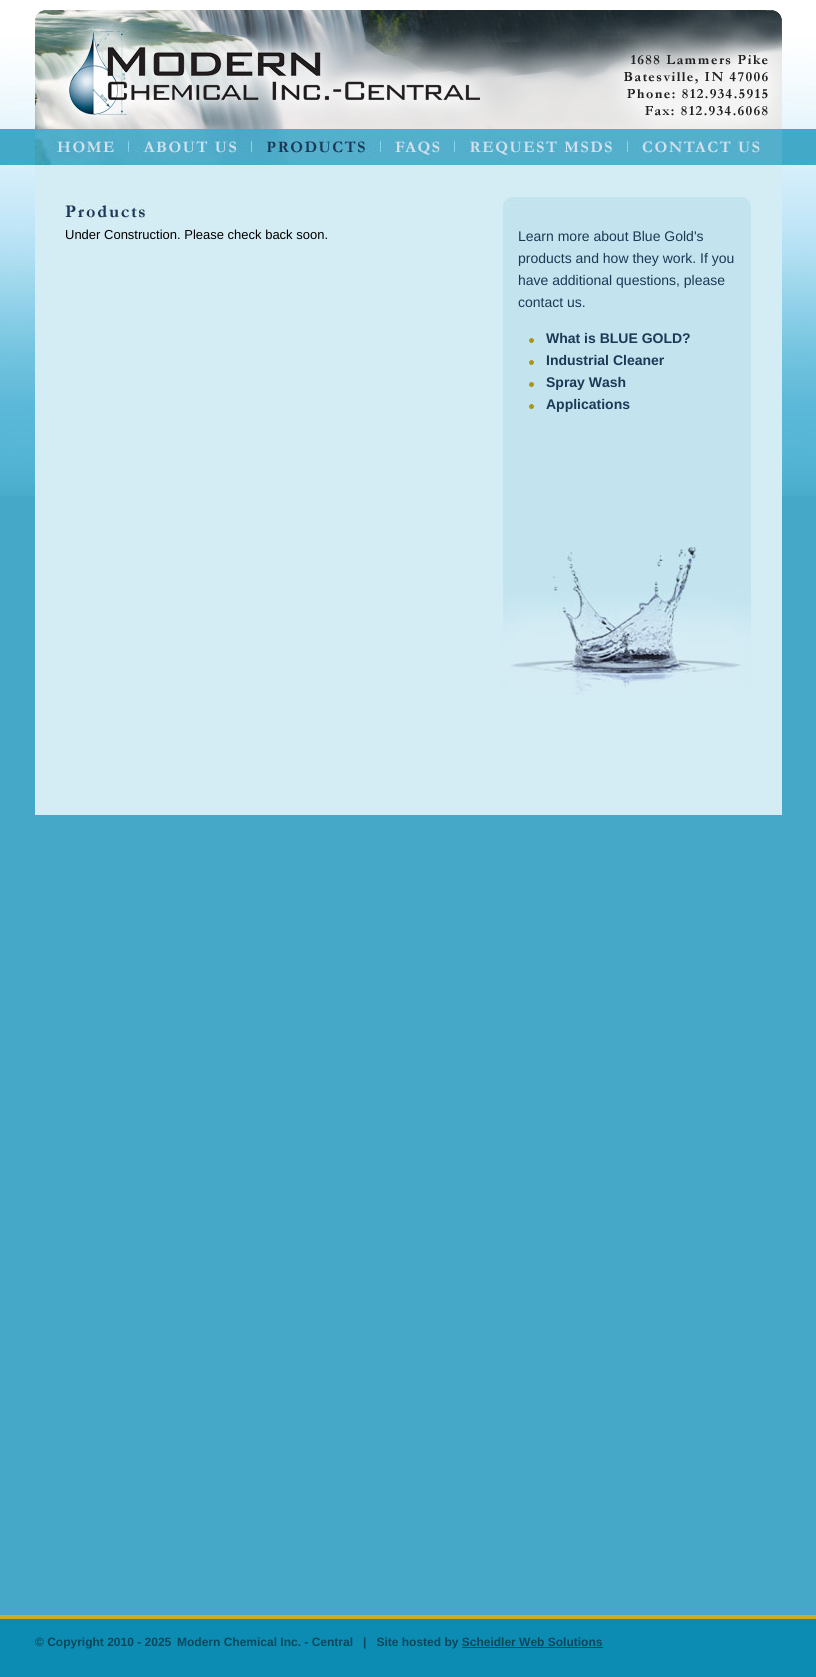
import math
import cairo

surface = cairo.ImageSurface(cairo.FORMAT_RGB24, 816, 1677)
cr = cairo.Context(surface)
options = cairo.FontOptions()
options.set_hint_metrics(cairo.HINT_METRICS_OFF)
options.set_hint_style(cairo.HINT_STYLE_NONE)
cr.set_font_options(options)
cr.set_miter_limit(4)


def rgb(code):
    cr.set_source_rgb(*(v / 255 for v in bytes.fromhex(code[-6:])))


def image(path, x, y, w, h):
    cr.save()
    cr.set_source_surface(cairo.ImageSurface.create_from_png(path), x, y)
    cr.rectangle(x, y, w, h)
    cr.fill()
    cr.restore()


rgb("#45a8c8")
cr.paint()
image("img/1.png", 0, 0, 816, 496)
image("img/2.png", 35, 10, 747, 119)
image("img/3.png", 35, 129, 84, 36)
image("img/4.png", 119, 129, 18, 36)
image("img/5.png", 137, 129, 108, 36)
image("img/6.png", 245, 129, 14, 36)
image("img/7.png", 259, 129, 116, 36)
image("img/8.png", 375, 129, 16, 36)
image("img/9.png", 391, 129, 52, 36)
image("img/10.png", 443, 129, 21, 36)
image("img/11.png", 464, 129, 154, 36)
image("img/12.png", 618, 129, 17, 36)
image("img/13.png", 635, 129, 147, 36)
rgb("#d4ecf4")
cr.rectangle(35, 165, 747, 650)
cr.fill()
image("img/14.png", 65, 203, 80, 16)
image("img/15.png", 502, 195, 250, 500)
image("img/16.png", 529, 338, 5, 5)
image("img/16.png", 529, 360, 5, 5)
image("img/16.png", 529, 382, 5, 5)
image("img/16.png", 529, 404, 5, 5)
image("img/17.png", 0, 1615, 816, 62)
rgb("#08485c")
cr.rectangle(462, 1647, 141, 1)
cr.fill()
cr.select_font_face("Liberation Sans")
cr.set_font_size(13)
rgb("#000000")
cr.move_to(65, 239)
cr.show_text("Under Construction. Please check back soon.")
cr.set_font_size(14)
rgb("#1d3856")
for x, y, s in [
    (518, 241, "Learn more about Blue Gold's"),
    (518, 263, "products and how they work. If you"),
    (518, 285, "have additional questions, please"),
    (518, 307, "contact us."),
]:
    cr.move_to(x, y)
    cr.show_text(s)
cr.select_font_face("Liberation Sans", cairo.FONT_SLANT_NORMAL, cairo.FONT_WEIGHT_BOLD)
for x, y, s in [
    (546, 343, "What is BLUE GOLD?"),
    (546, 365, "Industrial Cleaner"),
    (546, 387, "Spray Wash"),
    (546, 409, "Applications"),
]:
    cr.move_to(x, y)
    cr.show_text(s)
cr.set_font_size(12)
rgb("#08485c")
cr.move_to(35, 1646)
cr.show_text("© Copyright 2010 - 2025")
cr.move_to(177, 1646)
cr.show_text("Modern Chemical Inc. - Central   |   Site hosted by Scheidler Web Solutions")
surface.write_to_png("page.png")
